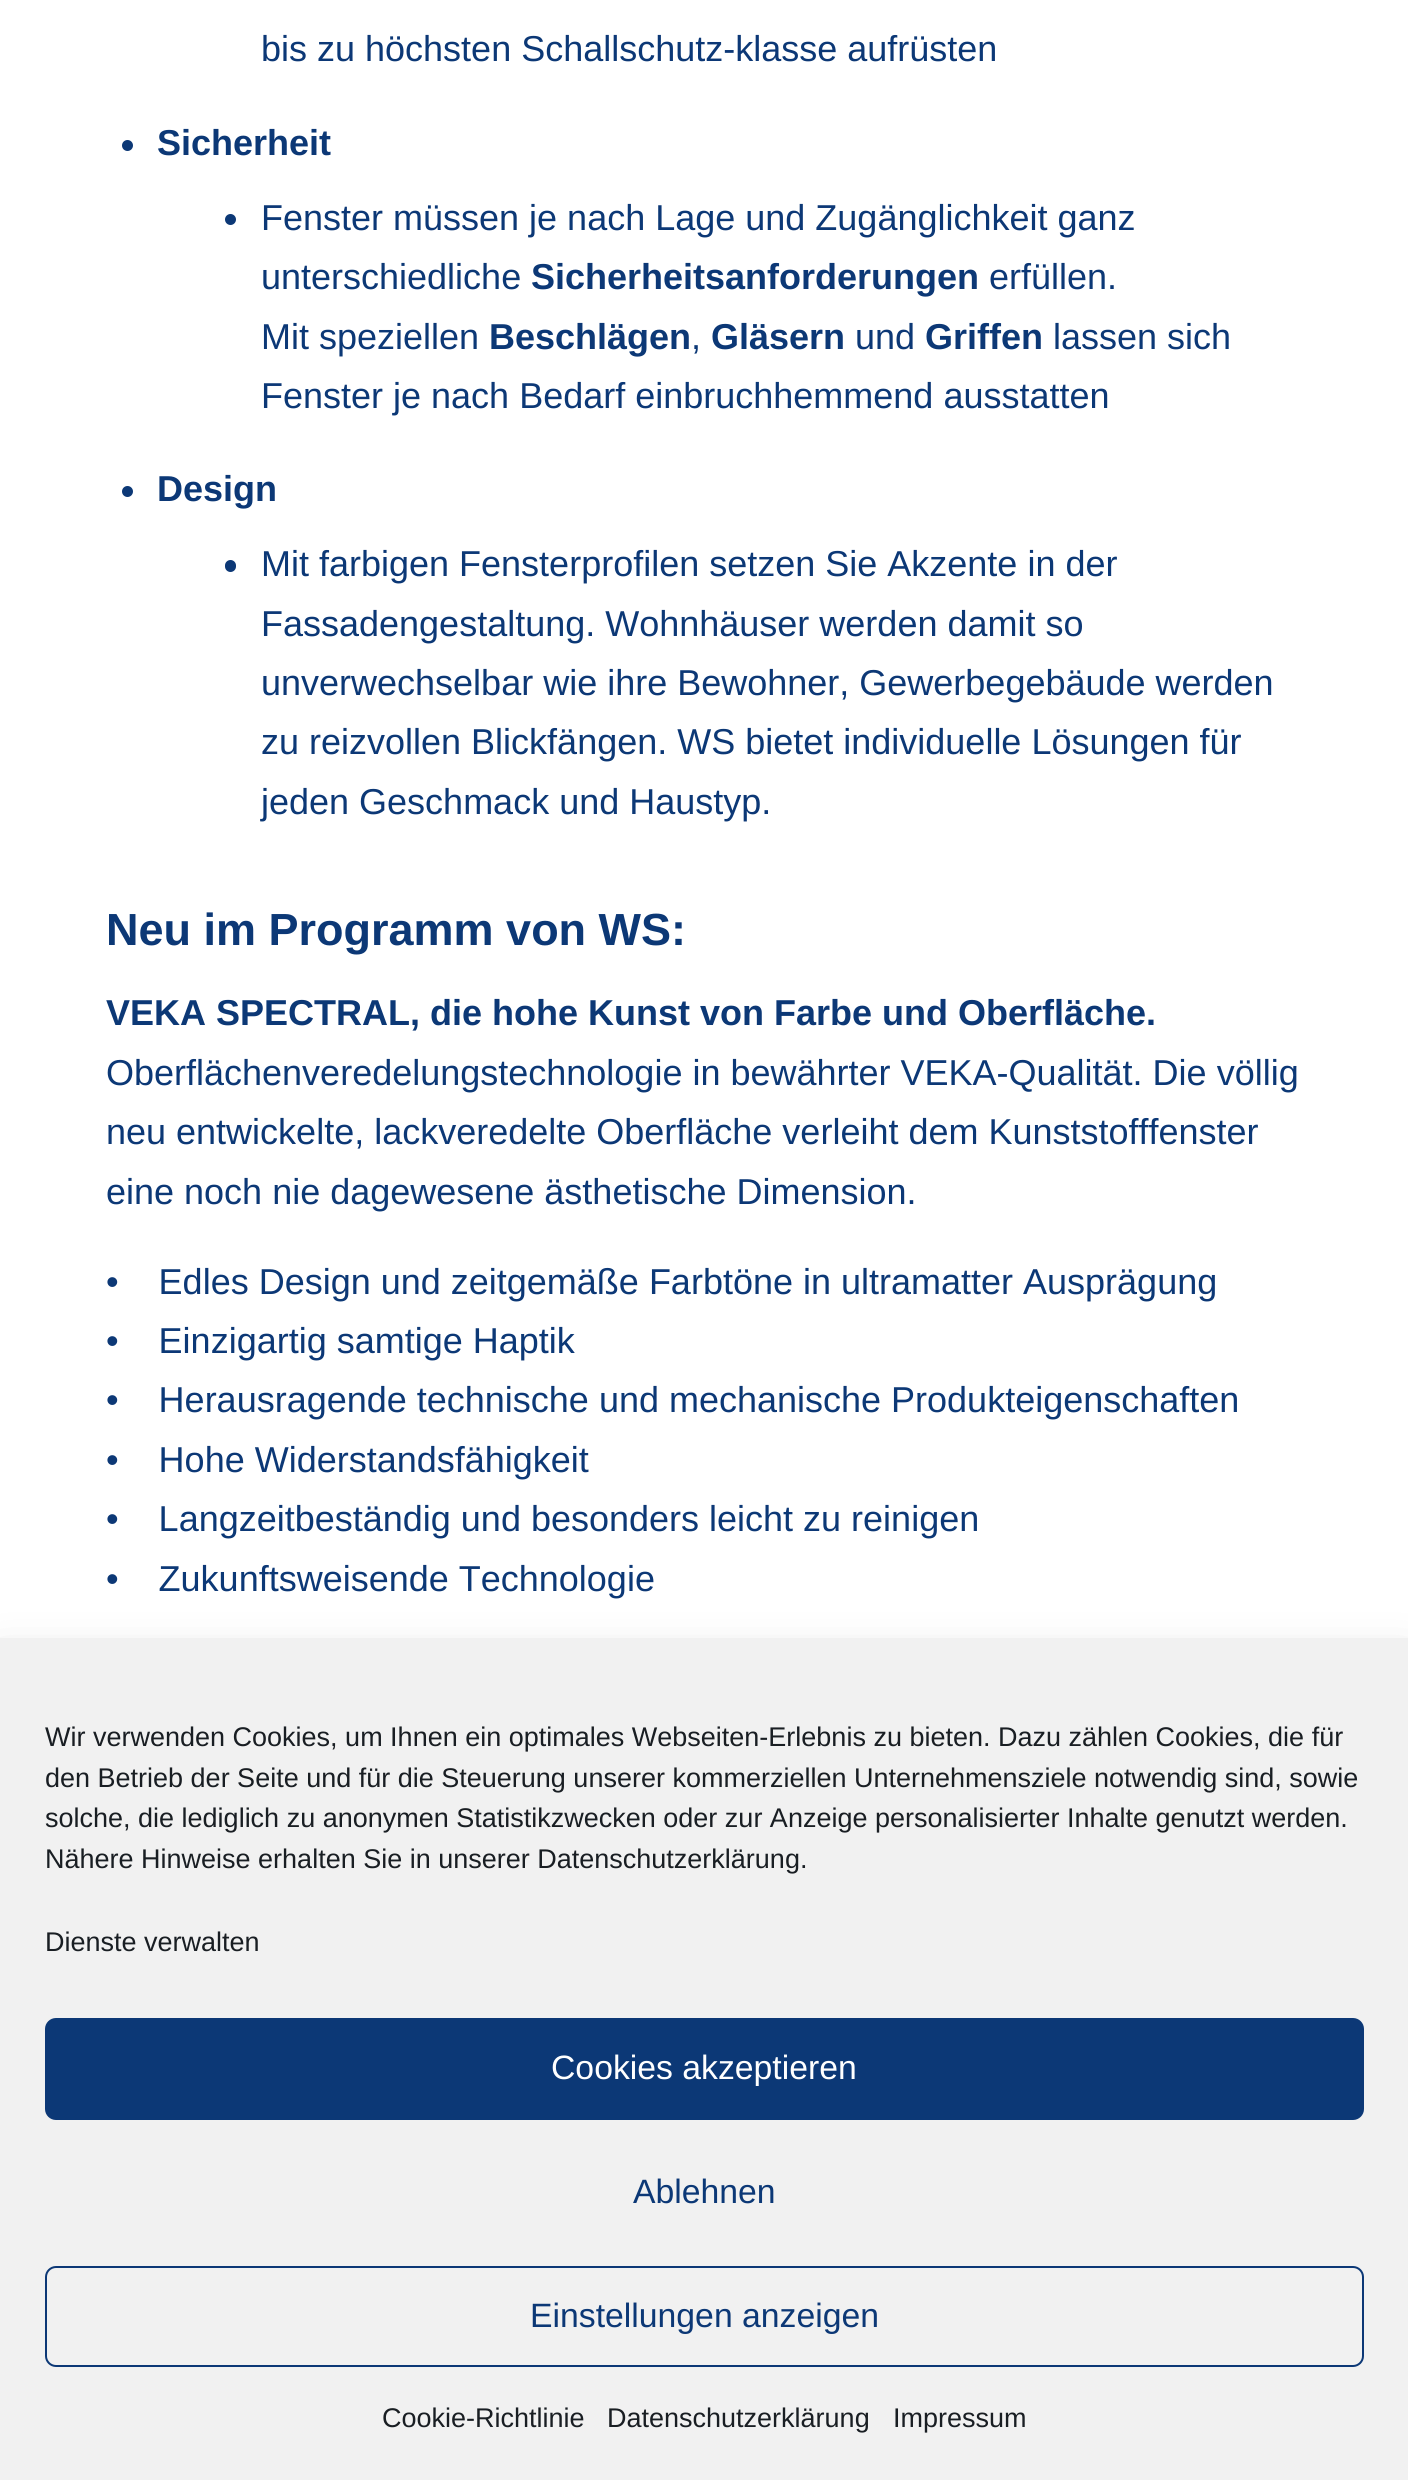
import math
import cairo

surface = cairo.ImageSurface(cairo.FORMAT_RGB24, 1408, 2480)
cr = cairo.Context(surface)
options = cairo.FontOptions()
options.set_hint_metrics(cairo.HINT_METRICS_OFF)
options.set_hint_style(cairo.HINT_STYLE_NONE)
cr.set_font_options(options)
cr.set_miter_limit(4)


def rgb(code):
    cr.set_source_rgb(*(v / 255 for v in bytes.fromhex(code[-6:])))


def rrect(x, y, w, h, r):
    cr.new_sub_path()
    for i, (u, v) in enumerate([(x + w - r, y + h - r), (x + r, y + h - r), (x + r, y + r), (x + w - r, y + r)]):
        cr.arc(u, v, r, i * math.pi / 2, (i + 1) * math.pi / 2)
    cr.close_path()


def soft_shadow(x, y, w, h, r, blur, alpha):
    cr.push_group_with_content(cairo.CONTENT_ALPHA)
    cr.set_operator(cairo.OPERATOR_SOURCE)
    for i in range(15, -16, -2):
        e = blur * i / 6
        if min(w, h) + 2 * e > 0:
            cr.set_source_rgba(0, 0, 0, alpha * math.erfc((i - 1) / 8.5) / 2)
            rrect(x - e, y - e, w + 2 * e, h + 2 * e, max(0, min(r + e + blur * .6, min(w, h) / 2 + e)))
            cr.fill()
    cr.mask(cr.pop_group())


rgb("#ffffff")
cr.paint()
rgb("#0c3876")
cr.arc(127.5, 145.5, 5.5, 0, 2 * math.pi)
cr.fill()
cr.arc(230.5, 219.5, 5.5, 0, 2 * math.pi)
cr.fill()
cr.arc(127.5, 491.5, 5.5, 0, 2 * math.pi)
cr.fill()
rrect(225, 560, 11, 12, 5.5)
cr.fill()
rgb("#000000")
soft_shadow(0, 1661, 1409, 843, 0, 22.5, 0.19)
rgb("#f1f1f1")
cr.rectangle(0, 1638, 1408, 842)
cr.fill()
rgb("#0c3876")
rrect(46, 2019, 1317, 100, 10)
cr.fill_preserve()
cr.stroke()
rrect(46, 2267, 1317, 99, 10)
cr.stroke()
cr.select_font_face("Liberation Sans")
cr.set_font_size(36)
cr.move_to(261, 61)
cr.show_text("bis zu höchsten Schallschutz-klasse aufrüsten")
cr.select_font_face("Liberation Sans", cairo.FONT_SLANT_NORMAL, cairo.FONT_WEIGHT_BOLD)
cr.move_to(157, 155)
cr.show_text("Sicherheit")
cr.select_font_face("Liberation Sans")
cr.move_to(261, 230)
cr.show_text("Fenster müssen je nach Lage und Zugänglichkeit ganz")
cr.move_to(261, 289)
cr.show_text("unterschiedliche")
cr.select_font_face("Liberation Sans", cairo.FONT_SLANT_NORMAL, cairo.FONT_WEIGHT_BOLD)
cr.move_to(531, 289)
cr.show_text("Sicherheitsanforderungen")
cr.select_font_face("Liberation Sans")
cr.move_to(989, 289)
cr.show_text("erfüllen.")
cr.move_to(261, 349)
cr.show_text("Mit speziellen")
cr.select_font_face("Liberation Sans", cairo.FONT_SLANT_NORMAL, cairo.FONT_WEIGHT_BOLD)
cr.move_to(489, 349)
cr.show_text("Beschlägen")
cr.select_font_face("Liberation Sans")
cr.move_to(691, 349)
cr.show_text(",")
cr.select_font_face("Liberation Sans", cairo.FONT_SLANT_NORMAL, cairo.FONT_WEIGHT_BOLD)
cr.move_to(711, 349)
cr.show_text("Gläsern")
cr.select_font_face("Liberation Sans")
cr.move_to(855, 349)
cr.show_text("und")
cr.select_font_face("Liberation Sans", cairo.FONT_SLANT_NORMAL, cairo.FONT_WEIGHT_BOLD)
cr.move_to(925, 349)
cr.show_text("Griffen")
cr.select_font_face("Liberation Sans")
cr.move_to(1053, 349)
cr.show_text("lassen sich")
cr.move_to(261, 408)
cr.show_text("Fenster je nach Bedarf einbruchhemmend ausstatten")
cr.select_font_face("Liberation Sans", cairo.FONT_SLANT_NORMAL, cairo.FONT_WEIGHT_BOLD)
cr.move_to(157, 501)
cr.show_text("Design")
cr.select_font_face("Liberation Sans")
for x, y, s in [
    (261, 576, "Mit farbigen Fensterprofilen setzen Sie Akzente in der"),
    (261, 636, "Fassadengestaltung. Wohnhäuser werden damit so"),
    (261, 695, "unverwechselbar wie ihre Bewohner, Gewerbegebäude werden"),
    (261, 754, "zu reizvollen Blickfängen. WS bietet individuelle Lösungen für"),
    (261, 814, "jeden Geschmack und Haustyp."),
]:
    cr.move_to(x, y)
    cr.show_text(s)
cr.select_font_face("Liberation Sans", cairo.FONT_SLANT_NORMAL, cairo.FONT_WEIGHT_BOLD)
cr.set_font_size(45)
cr.move_to(106, 945)
cr.show_text("Neu im Programm von WS:")
cr.set_font_size(36)
cr.move_to(106, 1025)
cr.show_text("VEKA SPECTRAL, die hohe Kunst von Farbe und Oberfläche.")
cr.select_font_face("Liberation Sans")
for x, y, s in [
    (106, 1085, "Oberflächenveredelungstechnologie in bewährter VEKA-Qualität. Die völlig"),
    (106, 1144, "neu entwickelte, lackveredelte Oberfläche verleiht dem Kunststofffenster"),
    (106, 1204, "eine noch nie dagewesene ästhetische Dimension."),
    (106, 1294, "•    Edles Design und zeitgemäße Farbtöne in ultramatter Ausprägung"),
    (106, 1353, "•    Einzigartig samtige Haptik"),
    (106, 1412, "•    Herausragende technische und mechanische Produkteigenschaften"),
    (106, 1472, "•    Hohe Widerstandsfähigkeit"),
    (106, 1531, "•    Langzeitbeständig und besonders leicht zu reinigen"),
    (106, 1591, "•    Zukunftsweisende Technologie"),
]:
    cr.move_to(x, y)
    cr.show_text(s)
cr.set_font_size(27)
rgb("#191e23")
for x, y, s in [
    (45, 1746, "Wir verwenden Cookies, um Ihnen ein optimales Webseiten-Erlebnis zu bieten. Dazu zählen Cookies, die für"),
    (45, 1787, "den Betrieb der Seite und für die Steuerung unserer kommerziellen Unternehmensziele notwendig sind, sowie"),
    (45, 1827, "solche, die lediglich zu anonymen Statistikzwecken oder zur Anzeige personalisierter Inhalte genutzt werden."),
    (45, 1868, "Nähere Hinweise erhalten Sie in unserer Datenschutzerklärung."),
    (45, 1951, "Dienste verwalten"),
]:
    cr.move_to(x, y)
    cr.show_text(s)
cr.set_font_size(33.75)
rgb("#ffffff")
cr.move_to(551, 2079)
cr.show_text("Cookies akzeptieren")
rgb("#0c3876")
cr.move_to(633, 2203)
cr.show_text("Ablehnen")
cr.move_to(530, 2327)
cr.show_text("Einstellungen anzeigen")
cr.set_font_size(27)
rgb("#191e23")
for x, y, s in [
    (382, 2427, "Cookie-Richtlinie"),
    (607, 2427, "Datenschutzerklärung"),
    (893, 2427, "Impressum"),
]:
    cr.move_to(x, y)
    cr.show_text(s)
surface.write_to_png("page.png")
